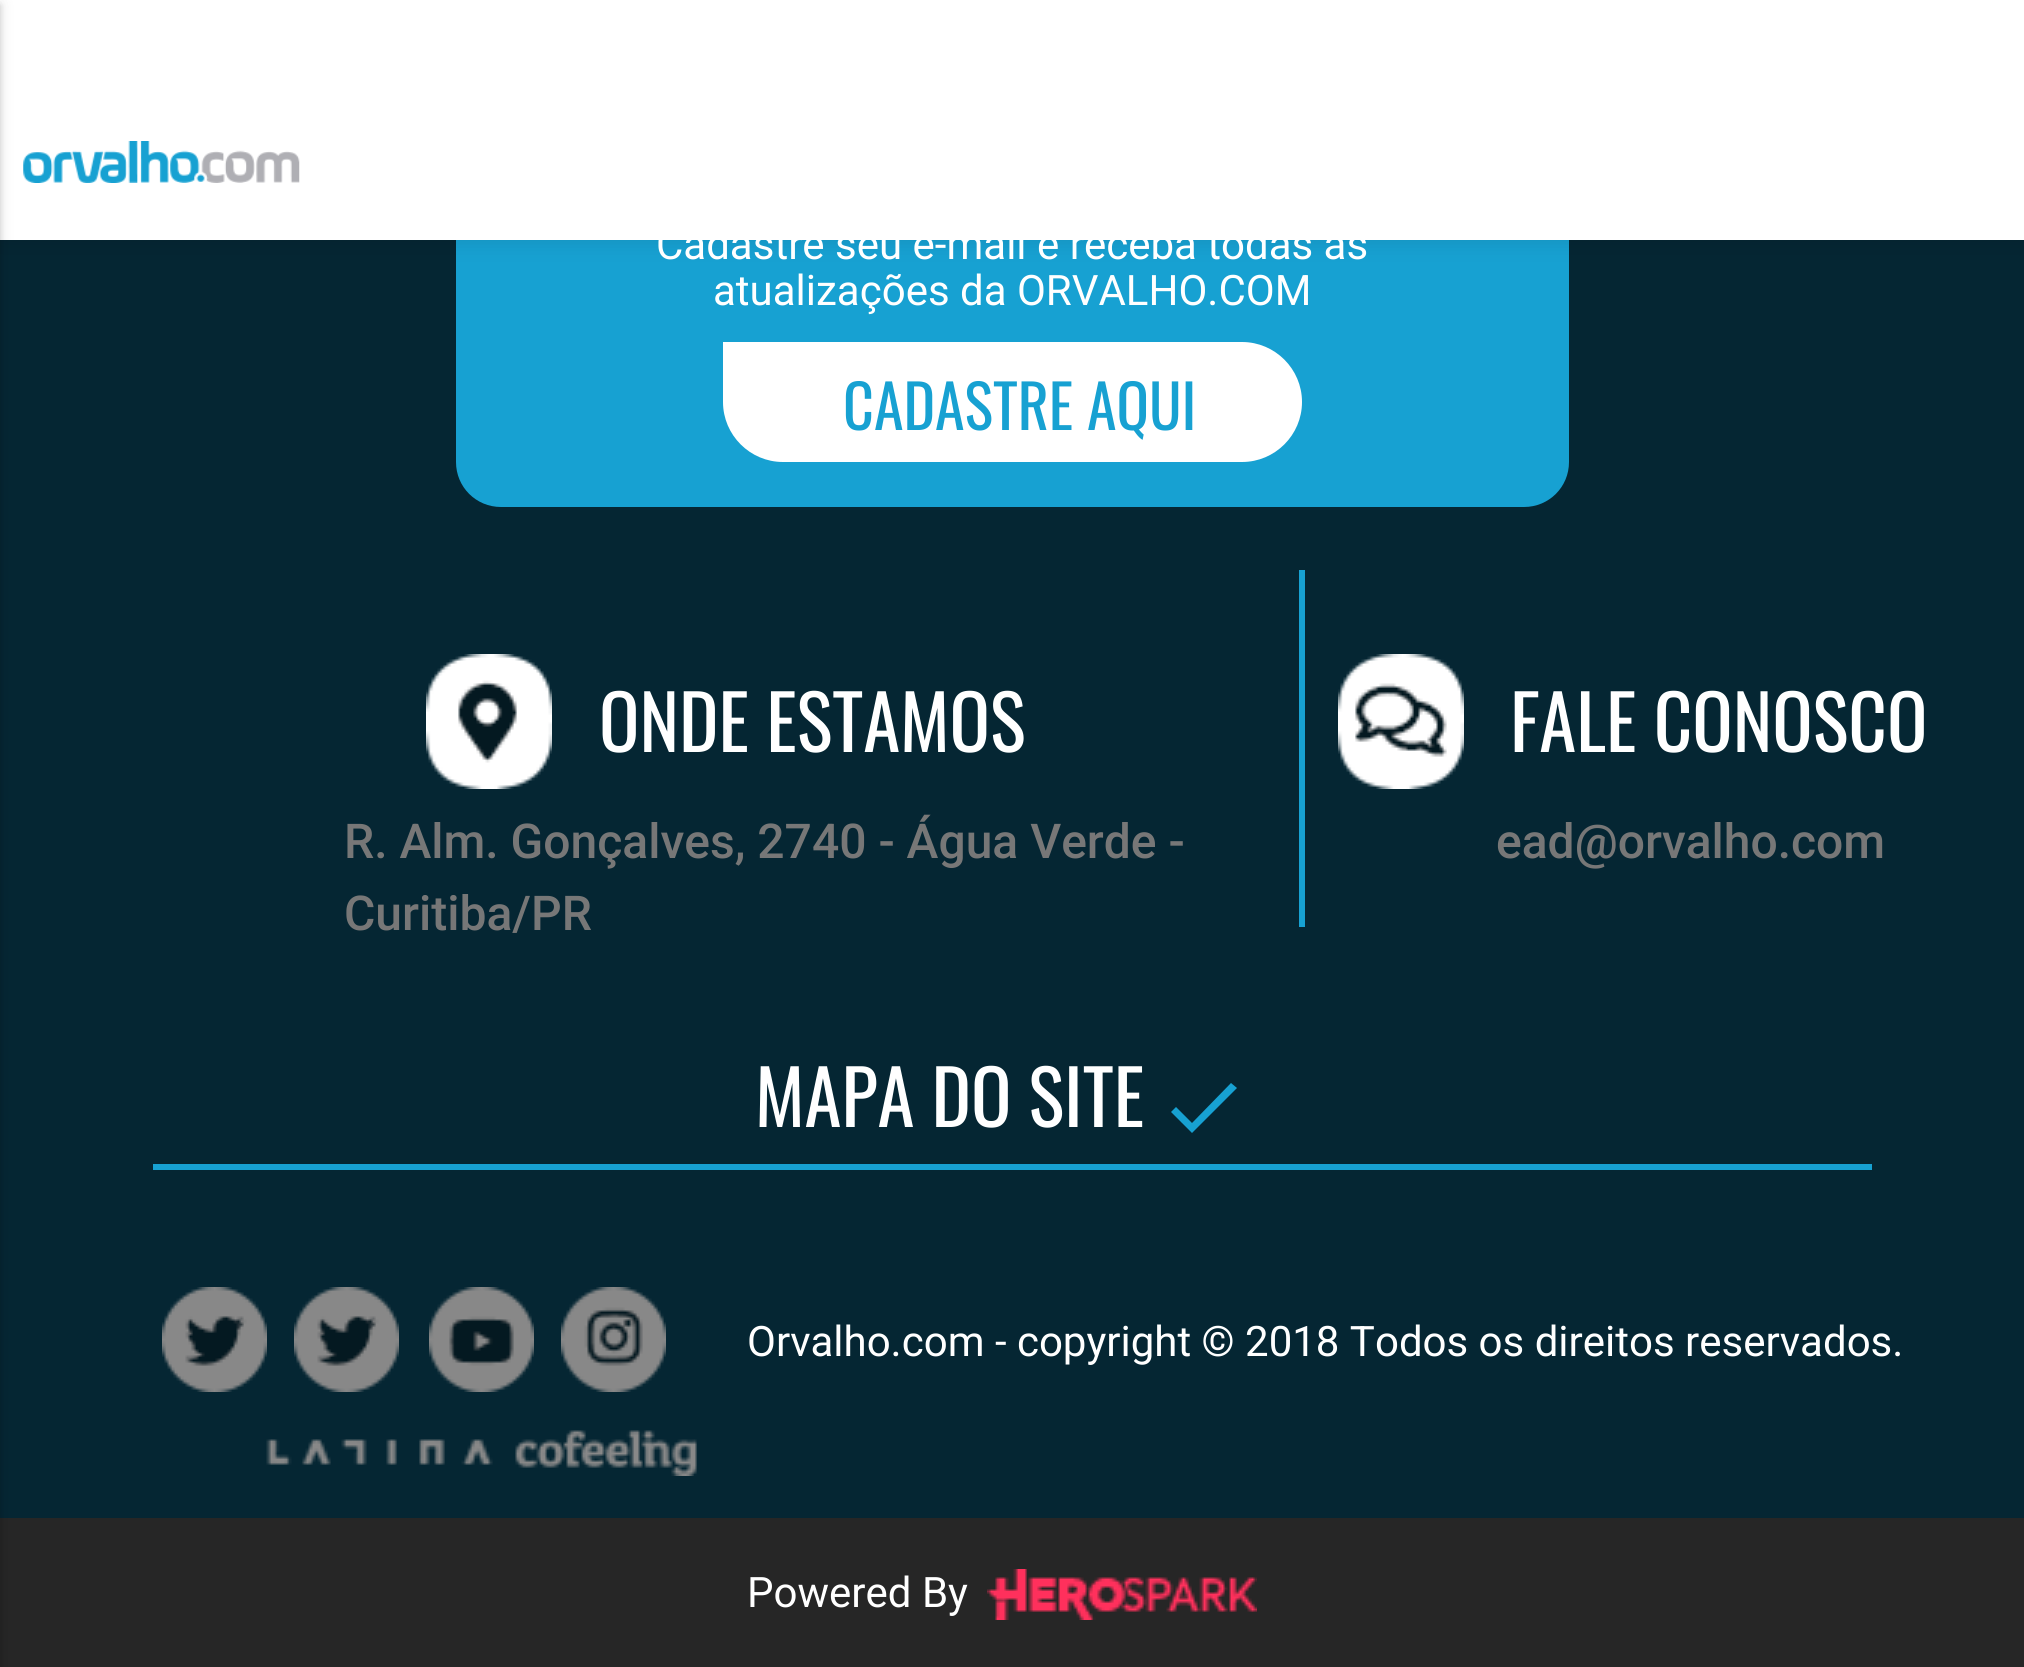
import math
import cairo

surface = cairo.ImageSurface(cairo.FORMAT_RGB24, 2024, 1667)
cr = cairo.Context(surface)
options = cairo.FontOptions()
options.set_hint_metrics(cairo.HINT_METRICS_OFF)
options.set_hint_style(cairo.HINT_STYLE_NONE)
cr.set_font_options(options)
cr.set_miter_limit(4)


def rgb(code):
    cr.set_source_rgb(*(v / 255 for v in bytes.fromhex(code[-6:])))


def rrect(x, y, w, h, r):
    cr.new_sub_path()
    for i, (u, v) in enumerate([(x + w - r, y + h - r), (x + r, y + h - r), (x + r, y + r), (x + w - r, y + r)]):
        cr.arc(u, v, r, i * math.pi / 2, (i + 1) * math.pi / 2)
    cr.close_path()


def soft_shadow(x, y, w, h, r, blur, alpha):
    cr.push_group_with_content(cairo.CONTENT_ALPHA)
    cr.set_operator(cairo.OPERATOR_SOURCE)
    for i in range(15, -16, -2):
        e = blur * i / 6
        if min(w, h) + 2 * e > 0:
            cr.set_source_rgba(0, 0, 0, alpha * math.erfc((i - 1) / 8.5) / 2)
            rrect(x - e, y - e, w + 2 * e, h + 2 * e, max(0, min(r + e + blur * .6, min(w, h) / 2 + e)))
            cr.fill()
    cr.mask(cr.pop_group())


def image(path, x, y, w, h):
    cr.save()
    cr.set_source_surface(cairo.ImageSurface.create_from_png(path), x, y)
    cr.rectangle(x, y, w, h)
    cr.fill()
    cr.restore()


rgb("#052633")
cr.paint()
rgb("#17a1d2")
cr.new_path()
cr.move_to(456, 144)
cr.line_to(1524, 144)
cr.curve_to(1549, 144, 1569, 164, 1569, 189)
cr.line_to(1569, 462)
cr.curve_to(1569, 487, 1549, 507, 1524, 507)
cr.line_to(501, 507)
cr.curve_to(476, 507, 456, 487, 456, 462)
cr.close_path()
cr.fill()
rgb("#000000")
soft_shadow(0, 3, 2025, 240, 0, 10.5, 0.1)
rgb("#ffffff")
cr.rectangle(0, 0, 2024, 240)
cr.fill()
image("img/1.png", 23, 141, 277, 42)
rgb("#262626")
cr.rectangle(0, 1518, 2024, 149)
cr.fill()
rgb("#000000")
soft_shadow(-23, 3, 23, 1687, 0, 7.5, 0.12)
soft_shadow(-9, 6, 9, 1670, 0, 3, 0.14)
rgb("#ffffff")
cr.new_path()
cr.move_to(723, 342)
cr.line_to(1242, 342)
cr.curve_to(1275, 342, 1302, 369, 1302, 402)
cr.curve_to(1302, 435, 1275, 462, 1242, 462)
cr.line_to(783, 462)
cr.curve_to(750, 462, 723, 435, 723, 402)
cr.close_path()
cr.fill()
image("img/2.png", 426, 654, 126, 135)
rgb("#17a1d2")
cr.rectangle(1299, 570, 6, 357)
cr.fill()
image("img/3.png", 1338, 654, 126, 135)
cr.rectangle(153, 1164, 1719, 6)
cr.fill()
cr.new_path()
cr.move_to(1192, 1123)
cr.line_to(1231, 1083)
cr.line_to(1237, 1088)
cr.line_to(1192, 1133)
cr.line_to(1171, 1112)
cr.line_to(1176, 1107)
cr.close_path()
cr.fill()
image("img/4.png", 162, 1287, 105, 105)
image("img/5.png", 294, 1287, 105, 105)
image("img/6.png", 429, 1287, 105, 105)
image("img/7.png", 561, 1287, 105, 105)
image("img/8.png", 266, 1430, 431, 46)
image("img/9.png", 987, 1569, 270, 51)
cr.select_font_face("Roboto")
cr.set_font_size(42)
rgb("#ffffff")
cr.move_to(656, 259)
cr.show_text("Cadastre seu e-mail e receba todas as")
cr.move_to(713, 305)
cr.show_text("atualizações da ORVALHO.COM")
cr.select_font_face("Oswald")
cr.set_font_size(60)
rgb("#17a1d2")
cr.move_to(843, 430)
cr.show_text("CADASTRE AQUI")
cr.set_font_size(75)
rgb("#ffffff")
cr.move_to(599, 752)
cr.show_text("ONDE ESTAMOS")
cr.select_font_face("Roboto Medium")
cr.set_font_size(48)
rgb("#777777")
cr.move_to(344, 858)
cr.show_text("R. Alm. Gonçalves, 2740 - Água Verde -")
cr.move_to(344, 930)
cr.show_text("Curitiba/PR")
cr.select_font_face("Oswald")
cr.set_font_size(75)
rgb("#ffffff")
cr.move_to(1510, 752)
cr.show_text("FALE CONOSCO")
cr.select_font_face("Roboto Medium")
cr.set_font_size(48)
rgb("#777777")
cr.move_to(1496, 858)
cr.show_text("ead@orvalho.com")
cr.select_font_face("Oswald")
cr.set_font_size(75)
rgb("#ffffff")
cr.move_to(755, 1127)
cr.show_text("MAPA DO SITE")
cr.select_font_face("Roboto")
cr.set_font_size(42)
cr.move_to(747, 1356)
cr.show_text("Orvalho.com - copyright © 2018 Todos os direitos reservados.")
cr.move_to(747, 1607)
cr.show_text("Powered By")
surface.write_to_png("page.png")
